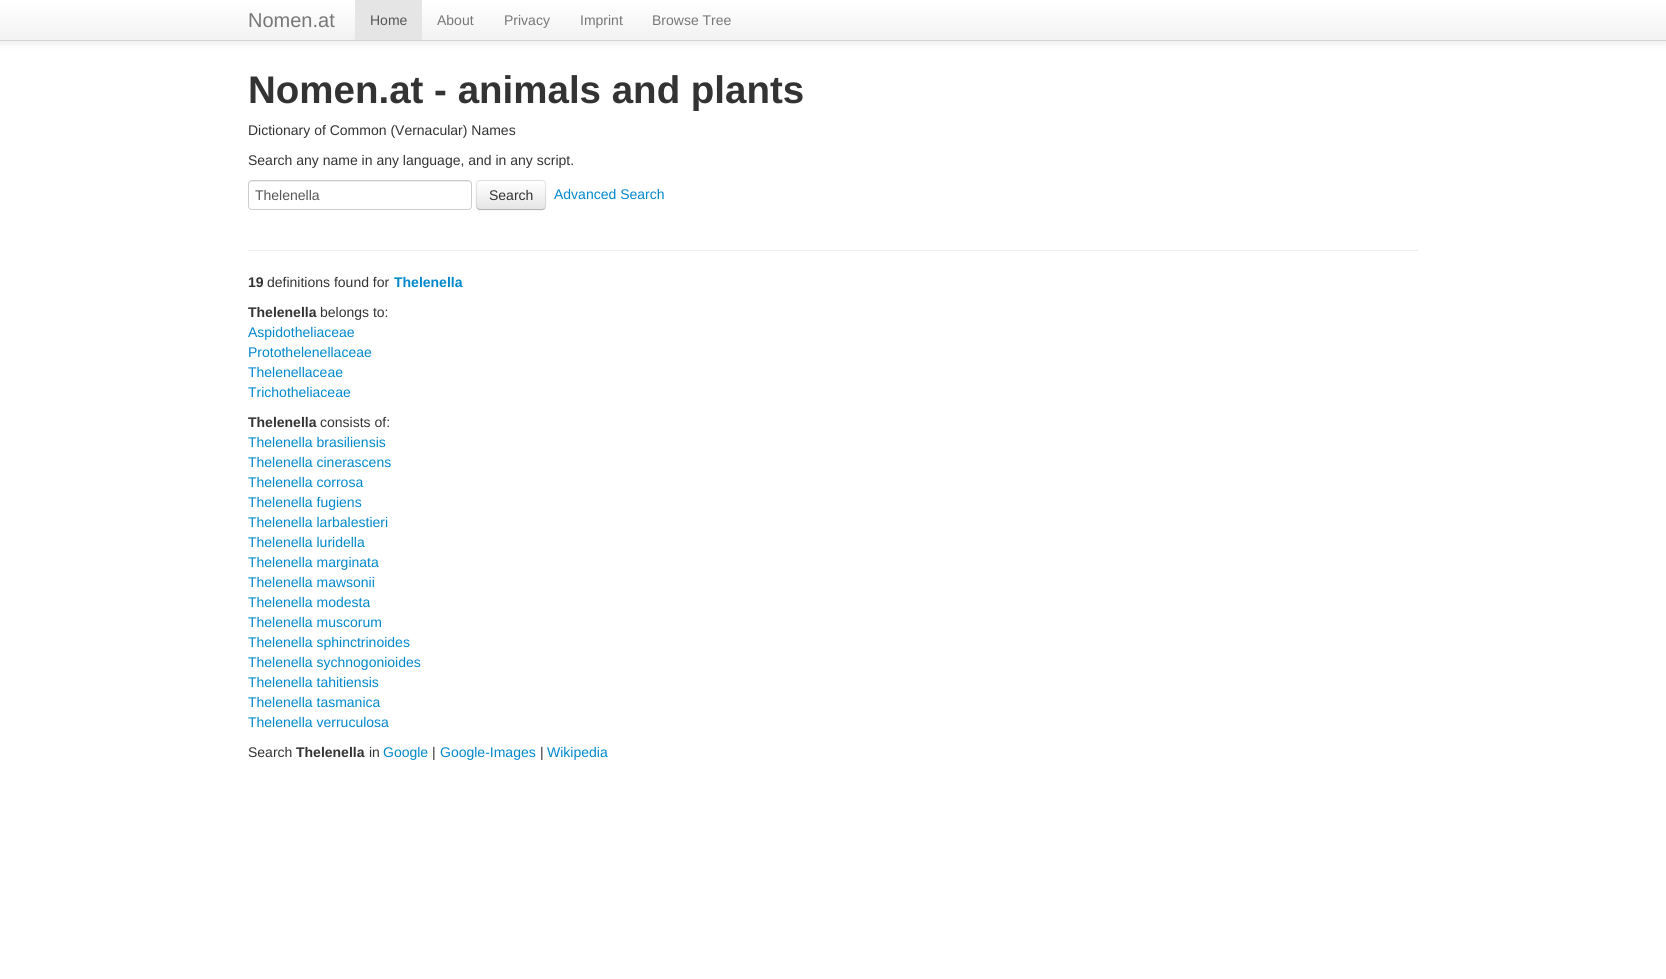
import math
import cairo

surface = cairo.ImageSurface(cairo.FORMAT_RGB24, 1666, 979)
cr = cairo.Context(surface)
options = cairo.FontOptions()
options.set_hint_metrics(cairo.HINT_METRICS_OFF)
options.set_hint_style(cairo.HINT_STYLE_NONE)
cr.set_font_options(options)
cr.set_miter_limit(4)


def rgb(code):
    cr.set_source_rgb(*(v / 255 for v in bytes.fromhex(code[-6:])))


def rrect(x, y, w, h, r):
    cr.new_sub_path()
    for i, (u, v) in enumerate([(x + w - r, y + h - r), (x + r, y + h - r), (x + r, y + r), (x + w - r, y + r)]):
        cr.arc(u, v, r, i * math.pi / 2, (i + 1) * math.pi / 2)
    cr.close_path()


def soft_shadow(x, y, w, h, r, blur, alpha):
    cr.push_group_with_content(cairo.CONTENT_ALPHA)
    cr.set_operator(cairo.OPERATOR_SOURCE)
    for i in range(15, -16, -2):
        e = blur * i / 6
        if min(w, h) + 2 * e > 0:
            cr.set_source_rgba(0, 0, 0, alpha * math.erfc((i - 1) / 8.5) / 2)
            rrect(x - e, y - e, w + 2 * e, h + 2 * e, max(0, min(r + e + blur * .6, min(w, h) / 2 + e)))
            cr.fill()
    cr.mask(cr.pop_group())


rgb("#ffffff")
cr.paint()
rgb("#000000")
soft_shadow(0, 1, 1666, 41, 0, 5, 0.1)
gradient = cairo.LinearGradient(833, 0, 833, 40)
gradient.add_color_stop_rgba(0, 1, 1, 1, 1)
gradient.add_color_stop_rgba(1, 0.949, 0.949, 0.949, 1)
cr.set_source(gradient)
cr.rectangle(0, 0, 1666, 40)
cr.fill()
rgb("#d4d4d4")
cr.rectangle(0, 40, 1666, 1)
cr.fill()
rgb("#e5e5e5")
cr.rectangle(355, 0, 67, 40)
cr.fill()
rgb("#ececec")
cr.new_path()
cr.move_to(252, 182)
cr.line_to(468, 182)
cr.curve_to(470, 182, 471, 183, 471, 185)
cr.line_to(471, 184)
cr.curve_to(471, 182, 470, 181, 468, 181)
cr.line_to(252, 181)
cr.curve_to(250, 181, 249, 182, 249, 184)
cr.line_to(249, 185)
cr.curve_to(249, 183, 250, 182, 252, 182)
cr.close_path()
cr.fill()
rrect(248.5, 180.5, 223, 29, 3.5)
rgb("#cccccc")
cr.set_line_width(1)
cr.stroke()
rgb("#000000")
soft_shadow(476, 181, 70, 30, 4, 1, 0.05)
rgb("#f5f5f5")
rrect(476, 180, 70, 30, 4)
cr.fill()
cr.save()
rrect(476, 180, 70, 30, 4)
cr.clip()
gradient = cairo.LinearGradient(511, 181, 511, 209)
gradient.add_color_stop_rgba(0, 1, 1, 1, 1)
gradient.add_color_stop_rgba(1, 0.902, 0.902, 0.902, 1)
cr.set_source(gradient)
cr.rectangle(476, 181, 70, 28)
cr.fill()
cr.restore()
cr.new_path()
cr.move_to(544.5, 208.5)
cr.line_to(542.5, 209.5)
cr.line_to(479.5, 209.5)
cr.line_to(477.5, 208.5)
rgb("#b3b3b3")
cr.stroke()
cr.new_path()
cr.move_to(477.5, 208.5)
cr.curve_to(475.5, 206.5, 476.5, 198, 476.5, 195)
cr.curve_to(476.5, 179, 474, 180.5, 490.5, 180.5)
cr.line_to(531.5, 180.5)
cr.curve_to(548, 180.5, 545.5, 179, 545.5, 195)
cr.curve_to(545.5, 198, 546.5, 206.5, 544.5, 208.5)
cr.set_source_rgba(0, 0, 0, 0.1)
cr.stroke()
rgb("#eeeeee")
cr.rectangle(248, 250, 1170, 1)
cr.fill()
cr.select_font_face("Liberation Sans")
cr.set_font_size(20)
rgb("#777777")
cr.move_to(248, 27)
cr.show_text("Nomen.at")
cr.set_font_size(14)
rgb("#555555")
cr.move_to(370, 25)
cr.show_text("Home")
rgb("#777777")
for x, y, s in [
    (437, 25, "About"),
    (504, 25, "Privacy"),
    (580, 25, "Imprint"),
    (652, 25, "Browse Tree"),
]:
    cr.move_to(x, y)
    cr.show_text(s)
cr.select_font_face("Liberation Sans", cairo.FONT_SLANT_NORMAL, cairo.FONT_WEIGHT_BOLD)
cr.set_font_size(38.5)
rgb("#333333")
cr.move_to(248, 103)
cr.show_text("Nomen.at - animals and plants")
cr.select_font_face("Liberation Sans")
cr.set_font_size(14)
cr.move_to(248, 135)
cr.show_text("Dictionary of Common (Vernacular) Names")
cr.move_to(248, 165)
cr.show_text("Search any name in any language, and in any script.")
rgb("#555555")
cr.move_to(255, 200)
cr.show_text("Thelenella")
rgb("#333333")
cr.move_to(489, 200)
cr.show_text("Search")
rgb("#0088cc")
cr.move_to(554, 199)
cr.show_text("Advanced Search")
cr.select_font_face("Liberation Sans", cairo.FONT_SLANT_NORMAL, cairo.FONT_WEIGHT_BOLD)
rgb("#333333")
cr.move_to(248, 287)
cr.show_text("19")
cr.select_font_face("Liberation Sans")
cr.move_to(267, 287)
cr.show_text("definitions found for")
cr.select_font_face("Liberation Sans", cairo.FONT_SLANT_NORMAL, cairo.FONT_WEIGHT_BOLD)
rgb("#0088cc")
cr.move_to(394, 287)
cr.show_text("Thelenella")
rgb("#333333")
cr.move_to(248, 317)
cr.show_text("Thelenella")
cr.select_font_face("Liberation Sans")
cr.move_to(320, 317)
cr.show_text("belongs to:")
rgb("#0088cc")
for x, y, s in [
    (248, 337, "Aspidotheliaceae"),
    (248, 357, "Protothelenellaceae"),
    (248, 377, "Thelenellaceae"),
    (248, 397, "Trichotheliaceae"),
]:
    cr.move_to(x, y)
    cr.show_text(s)
cr.select_font_face("Liberation Sans", cairo.FONT_SLANT_NORMAL, cairo.FONT_WEIGHT_BOLD)
rgb("#333333")
cr.move_to(248, 427)
cr.show_text("Thelenella")
cr.select_font_face("Liberation Sans")
cr.move_to(320, 427)
cr.show_text("consists of:")
rgb("#0088cc")
for x, y, s in [
    (248, 447, "Thelenella brasiliensis"),
    (248, 467, "Thelenella cinerascens"),
    (248, 487, "Thelenella corrosa"),
    (248, 507, "Thelenella fugiens"),
    (248, 527, "Thelenella larbalestieri"),
    (248, 547, "Thelenella luridella"),
    (248, 567, "Thelenella marginata"),
    (248, 587, "Thelenella mawsonii"),
    (248, 607, "Thelenella modesta"),
    (248, 627, "Thelenella muscorum"),
    (248, 647, "Thelenella sphinctrinoides"),
    (248, 667, "Thelenella sychnogonioides"),
    (248, 687, "Thelenella tahitiensis"),
    (248, 707, "Thelenella tasmanica"),
    (248, 727, "Thelenella verruculosa"),
]:
    cr.move_to(x, y)
    cr.show_text(s)
rgb("#333333")
cr.move_to(248, 757)
cr.show_text("Search")
cr.select_font_face("Liberation Sans", cairo.FONT_SLANT_NORMAL, cairo.FONT_WEIGHT_BOLD)
cr.move_to(296, 757)
cr.show_text("Thelenella")
cr.select_font_face("Liberation Sans")
cr.move_to(369, 757)
cr.show_text("in")
rgb("#0088cc")
cr.move_to(383, 757)
cr.show_text("Google")
rgb("#333333")
cr.move_to(432, 757)
cr.show_text("|")
rgb("#0088cc")
cr.move_to(440, 757)
cr.show_text("Google-Images")
rgb("#333333")
cr.move_to(540, 757)
cr.show_text("|")
rgb("#0088cc")
cr.move_to(547, 757)
cr.show_text("Wikipedia")
surface.write_to_png("page.png")
